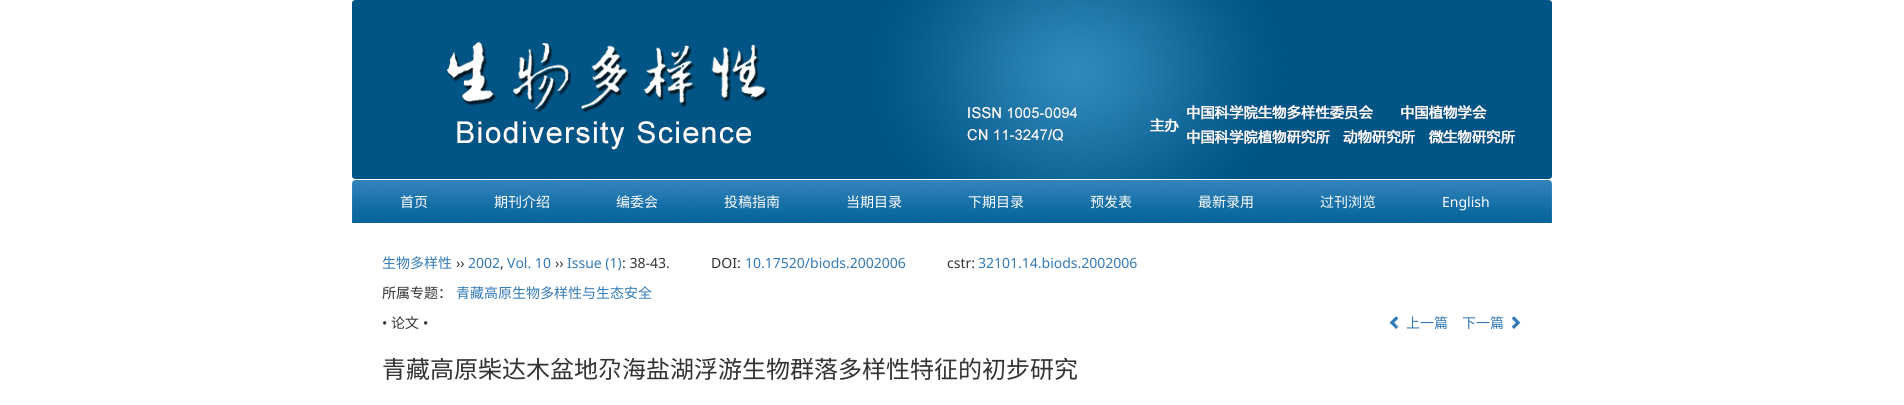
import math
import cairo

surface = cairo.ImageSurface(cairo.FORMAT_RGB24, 1904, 405)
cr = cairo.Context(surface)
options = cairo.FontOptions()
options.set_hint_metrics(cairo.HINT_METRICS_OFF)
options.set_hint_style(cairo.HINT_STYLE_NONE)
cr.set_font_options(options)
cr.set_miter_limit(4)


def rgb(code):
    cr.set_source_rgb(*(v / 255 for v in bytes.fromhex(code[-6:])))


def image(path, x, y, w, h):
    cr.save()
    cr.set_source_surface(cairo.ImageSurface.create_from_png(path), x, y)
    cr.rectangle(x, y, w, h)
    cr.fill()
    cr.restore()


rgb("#ffffff")
cr.paint()
image("img/1.png", 352, 0, 1200, 180)
image("img/2.png", 352, 180, 1200, 43)
image("img/3.png", 1389, 316, 10, 13)
image("img/4.png", 1511, 316, 10, 13)
cr.select_font_face("Noto Sans CJK SC")
cr.set_font_size(14)
rgb("#ffffff")
for x, y, s in [
    (400, 207, "首页"),
    (494, 207, "期刊介绍"),
    (616, 207, "编委会"),
    (724, 207, "投稿指南"),
    (846, 207, "当期目录"),
    (968, 207, "下期目录"),
    (1090, 207, "预发表"),
    (1198, 207, "最新录用"),
    (1320, 207, "过刊浏览"),
]:
    cr.move_to(x, y)
    cr.show_text(s)
cr.select_font_face("Noto Sans")
cr.move_to(1442, 207)
cr.show_text("English")
cr.select_font_face("Noto Sans CJK SC")
rgb("#337ab7")
cr.move_to(382, 268)
cr.show_text("生物多样性")
cr.select_font_face("Noto Sans")
rgb("#333333")
cr.move_to(456, 268)
cr.show_text("››")
rgb("#337ab7")
cr.move_to(468, 268)
cr.show_text("2002")
rgb("#333333")
cr.move_to(500, 268)
cr.show_text(",")
rgb("#337ab7")
cr.move_to(507, 268)
cr.show_text("Vol. 10")
rgb("#333333")
cr.move_to(555, 268)
cr.show_text("››")
rgb("#337ab7")
cr.move_to(567, 268)
cr.show_text("Issue (1)")
rgb("#333333")
cr.move_to(622, 268)
cr.show_text(": 38-43.")
cr.move_to(711, 268)
cr.show_text("DOI:")
rgb("#337ab7")
cr.move_to(745, 268)
cr.show_text("10.17520/biods.2002006")
rgb("#333333")
cr.move_to(947, 268)
cr.show_text("cstr:")
rgb("#337ab7")
cr.move_to(978, 268)
cr.show_text("32101.14.biods.2002006")
cr.select_font_face("Noto Sans CJK SC")
rgb("#333333")
cr.move_to(382, 298)
cr.show_text("所属专题：")
rgb("#337ab7")
cr.move_to(456, 298)
cr.show_text("青藏高原生物多样性与生态安全")
cr.select_font_face("Noto Sans")
rgb("#333333")
cr.move_to(382, 328)
cr.show_text("•")
cr.select_font_face("Noto Sans CJK SC")
cr.move_to(391, 328)
cr.show_text("论文")
cr.select_font_face("Noto Sans")
cr.move_to(423, 328)
cr.show_text("•")
cr.select_font_face("Noto Sans CJK SC")
rgb("#337ab7")
cr.move_to(1406, 328)
cr.show_text("上一篇")
cr.move_to(1462, 328)
cr.show_text("下一篇")
cr.set_font_size(24)
rgb("#333333")
cr.move_to(382, 378)
cr.show_text("青藏高原柴达木盆地尕海盐湖浮游生物群落多样性特征的初步研究")
surface.write_to_png("page.png")
